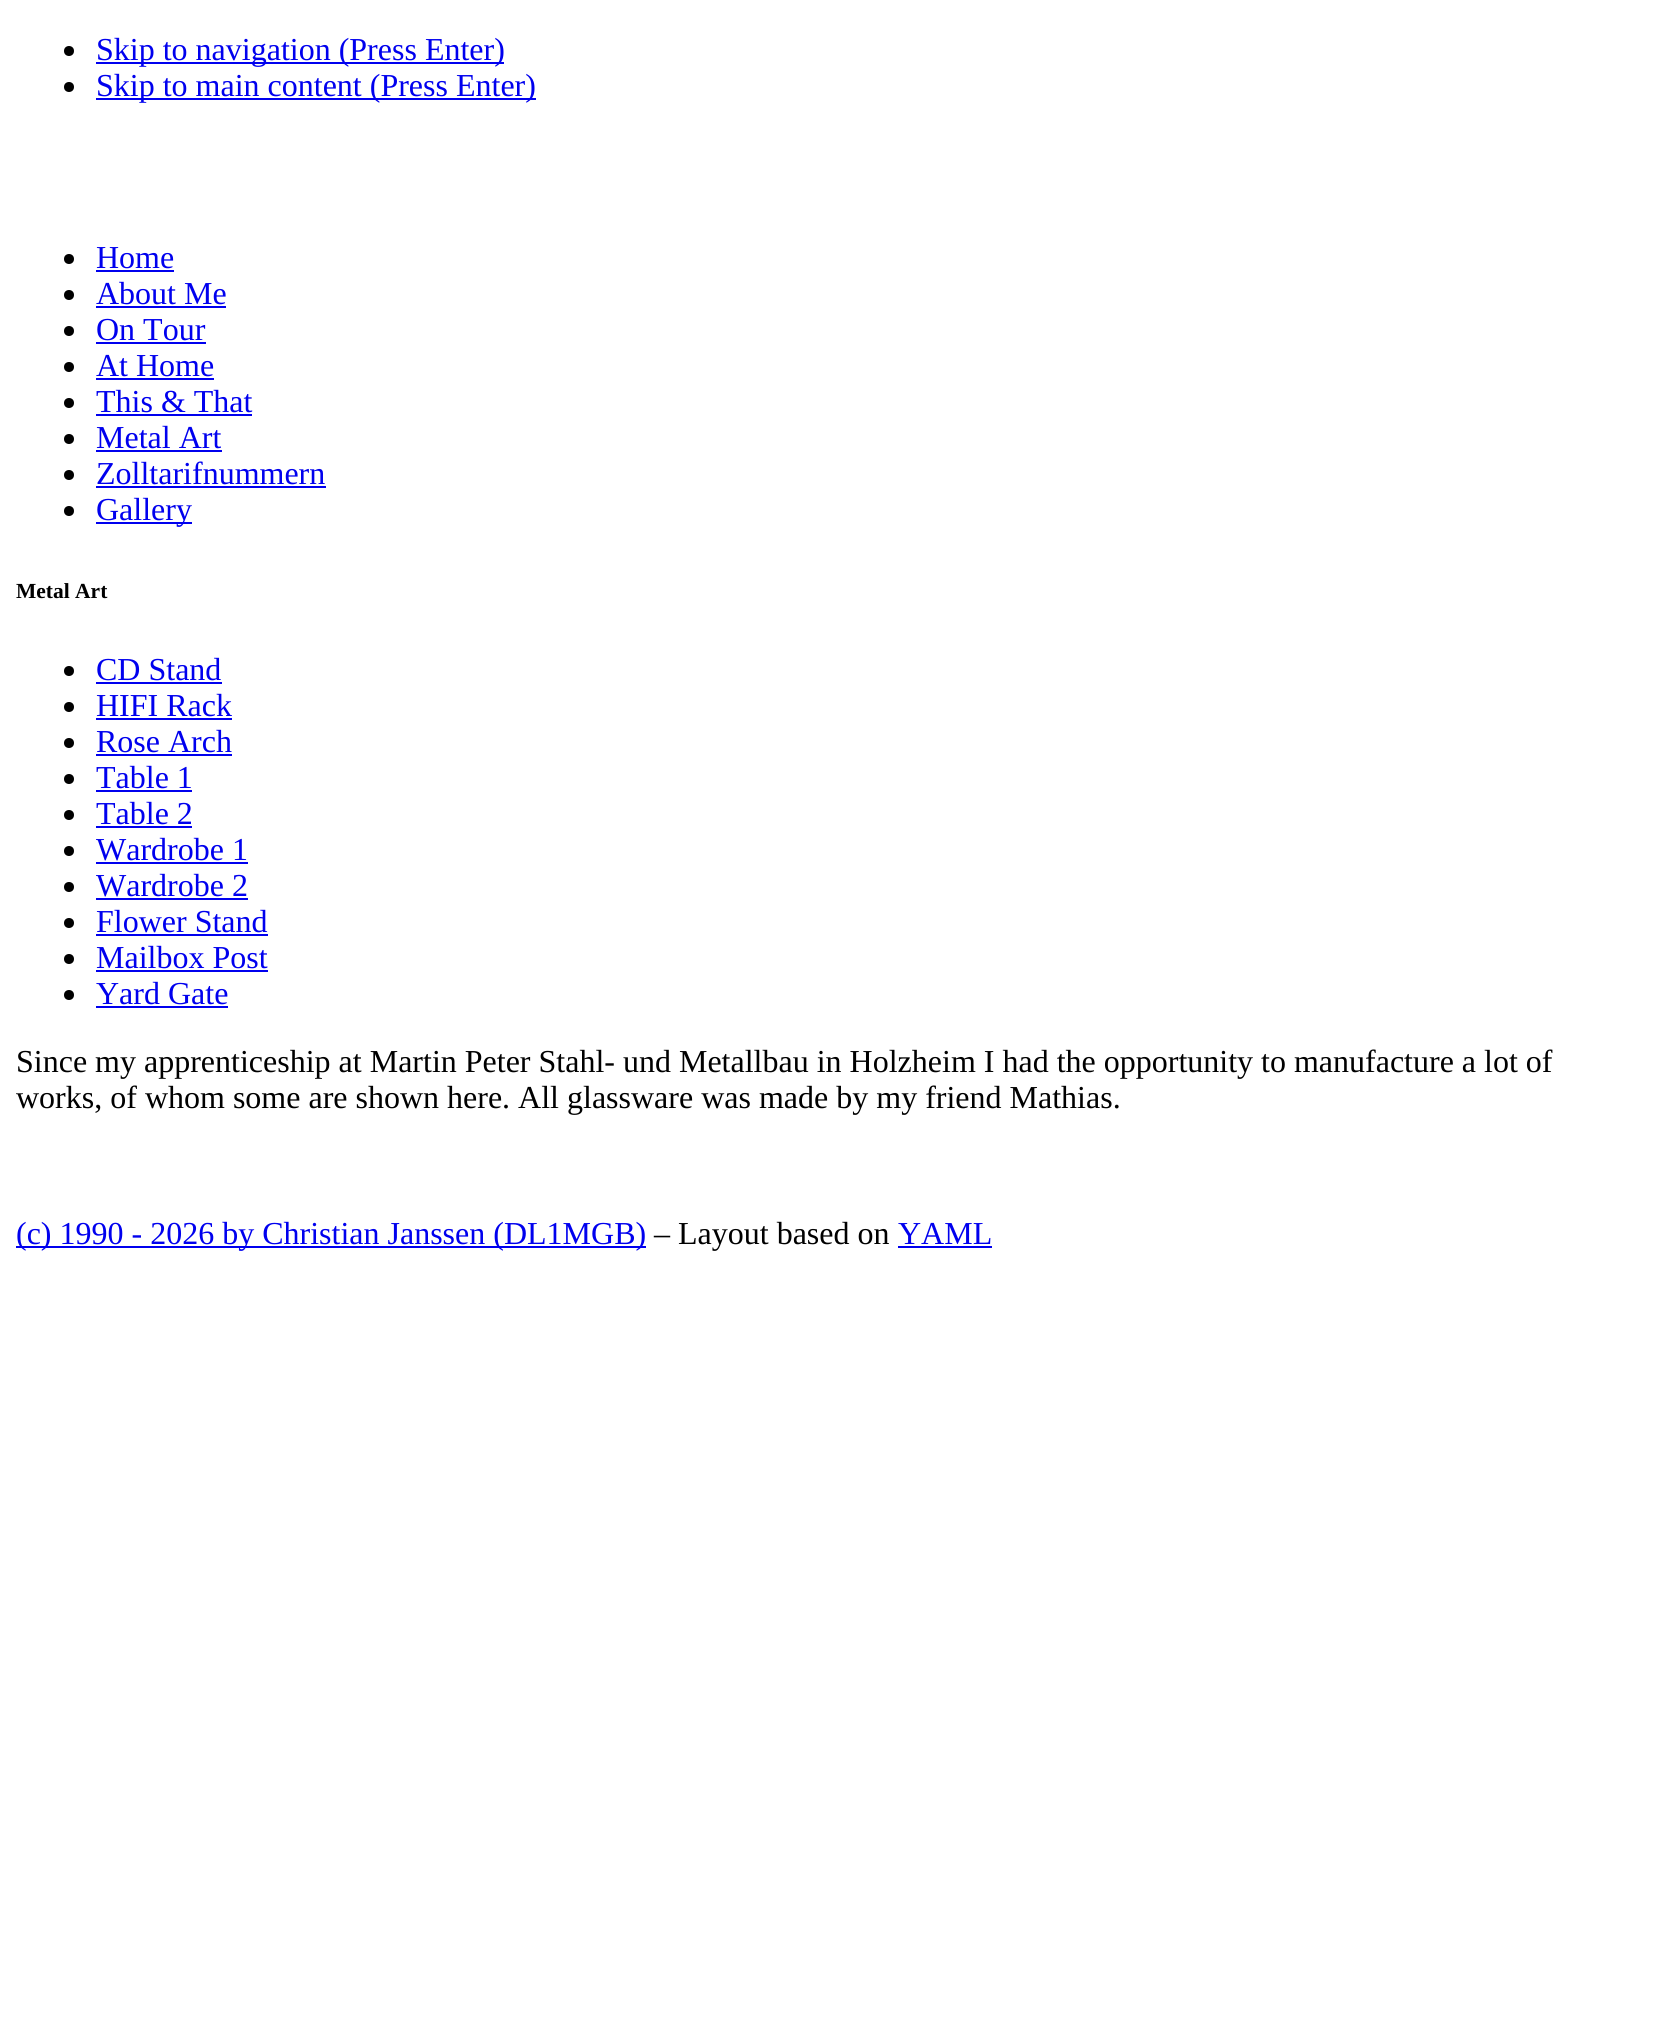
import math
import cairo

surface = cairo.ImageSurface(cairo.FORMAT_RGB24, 1654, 2038)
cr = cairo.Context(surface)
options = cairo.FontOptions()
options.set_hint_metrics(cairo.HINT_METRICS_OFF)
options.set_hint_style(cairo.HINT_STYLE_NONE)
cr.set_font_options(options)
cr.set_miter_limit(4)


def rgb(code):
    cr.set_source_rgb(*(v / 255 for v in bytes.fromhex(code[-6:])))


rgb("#ffffff")
cr.paint()
rgb("#000000")
cr.arc(69, 51, 5, 0, 2 * math.pi)
cr.fill()
rgb("#0000ee")
cr.rectangle(96, 62, 408, 2)
cr.fill()
rgb("#000000")
cr.arc(69, 87, 5, 0, 2 * math.pi)
cr.fill()
rgb("#0000ee")
cr.rectangle(96, 98, 440, 2)
cr.fill()
rgb("#000000")
cr.arc(69, 259, 5, 0, 2 * math.pi)
cr.fill()
rgb("#0000ee")
cr.rectangle(96, 270, 78, 2)
cr.fill()
rgb("#000000")
cr.arc(69, 295, 5, 0, 2 * math.pi)
cr.fill()
rgb("#0000ee")
cr.rectangle(96, 306, 130, 2)
cr.fill()
rgb("#000000")
cr.arc(69, 331, 5, 0, 2 * math.pi)
cr.fill()
rgb("#0000ee")
cr.rectangle(96, 342, 110, 2)
cr.fill()
rgb("#000000")
cr.arc(69, 367, 5, 0, 2 * math.pi)
cr.fill()
rgb("#0000ee")
cr.rectangle(96, 378, 118, 2)
cr.fill()
rgb("#000000")
cr.arc(69, 403, 5, 0, 2 * math.pi)
cr.fill()
rgb("#0000ee")
cr.rectangle(96, 414, 156, 2)
cr.fill()
rgb("#000000")
cr.arc(69, 439, 5, 0, 2 * math.pi)
cr.fill()
rgb("#0000ee")
cr.rectangle(96, 450, 126, 2)
cr.fill()
rgb("#000000")
cr.arc(69, 475, 5, 0, 2 * math.pi)
cr.fill()
rgb("#0000ee")
cr.rectangle(96, 486, 230, 2)
cr.fill()
rgb("#000000")
cr.arc(69, 511, 5, 0, 2 * math.pi)
cr.fill()
rgb("#0000ee")
cr.rectangle(96, 522, 96, 2)
cr.fill()
rgb("#000000")
cr.arc(69, 671, 5, 0, 2 * math.pi)
cr.fill()
rgb("#0000ee")
cr.rectangle(96, 682, 126, 2)
cr.fill()
rgb("#000000")
cr.arc(69, 707, 5, 0, 2 * math.pi)
cr.fill()
rgb("#0000ee")
cr.rectangle(96, 718, 136, 2)
cr.fill()
rgb("#000000")
cr.arc(69, 743, 5, 0, 2 * math.pi)
cr.fill()
rgb("#0000ee")
cr.rectangle(96, 754, 136, 2)
cr.fill()
rgb("#000000")
cr.arc(69, 779, 5, 0, 2 * math.pi)
cr.fill()
rgb("#0000ee")
cr.rectangle(96, 790, 96, 2)
cr.fill()
rgb("#000000")
cr.arc(69, 815, 5, 0, 2 * math.pi)
cr.fill()
rgb("#0000ee")
cr.rectangle(96, 826, 96, 2)
cr.fill()
rgb("#000000")
cr.arc(69, 851, 5, 0, 2 * math.pi)
cr.fill()
rgb("#0000ee")
cr.rectangle(96, 862, 152, 2)
cr.fill()
rgb("#000000")
cr.arc(69, 887, 5, 0, 2 * math.pi)
cr.fill()
rgb("#0000ee")
cr.rectangle(96, 898, 152, 2)
cr.fill()
rgb("#000000")
cr.arc(69, 923, 5, 0, 2 * math.pi)
cr.fill()
rgb("#0000ee")
cr.rectangle(96, 934, 172, 2)
cr.fill()
rgb("#000000")
cr.arc(69, 959, 5, 0, 2 * math.pi)
cr.fill()
rgb("#0000ee")
cr.rectangle(96, 970, 172, 2)
cr.fill()
rgb("#000000")
cr.arc(69, 995, 5, 0, 2 * math.pi)
cr.fill()
for x, y, w, h, color in [
    (96, 1006, 132, 2, "#0000ee"),
    (16, 1246, 630, 2, "#0000ee"),
    (898, 1246, 94, 2, "#0000ee"),
]:
    rgb(color)
    cr.rectangle(x, y, w, h)
    cr.fill()
cr.select_font_face("Liberation Serif")
cr.set_font_size(32)
for x, y, s in [
    (96, 60, "Skip to navigation (Press Enter)"),
    (96, 96, "Skip to main content (Press Enter)"),
    (96, 268, "Home"),
    (96, 304, "About Me"),
    (96, 340, "On Tour"),
    (96, 376, "At Home"),
    (96, 412, "This & That"),
    (96, 448, "Metal Art"),
    (96, 484, "Zolltarifnummern"),
    (96, 520, "Gallery"),
]:
    cr.move_to(x, y)
    cr.show_text(s)
cr.select_font_face("Liberation Serif", cairo.FONT_SLANT_NORMAL, cairo.FONT_WEIGHT_BOLD)
cr.set_font_size(21.5)
rgb("#000000")
cr.move_to(16, 598)
cr.show_text("Metal Art")
cr.select_font_face("Liberation Serif")
cr.set_font_size(32)
rgb("#0000ee")
for x, y, s in [
    (96, 680, "CD Stand"),
    (96, 716, "HIFI Rack"),
    (96, 752, "Rose Arch"),
    (96, 788, "Table 1"),
    (96, 824, "Table 2"),
    (96, 860, "Wardrobe 1"),
    (96, 896, "Wardrobe 2"),
    (96, 932, "Flower Stand"),
    (96, 968, "Mailbox Post"),
    (96, 1004, "Yard Gate"),
]:
    cr.move_to(x, y)
    cr.show_text(s)
rgb("#000000")
cr.move_to(16, 1072)
cr.show_text("Since my apprenticeship at Martin Peter Stahl- und Metallbau in Holzheim I had the opportunity to manufacture a lot of")
cr.move_to(16, 1108)
cr.show_text("works, of whom some are shown here. All glassware was made by my friend Mathias.")
rgb("#0000ee")
cr.move_to(16, 1244)
cr.show_text("(c) 1990 - 2026 by Christian Janssen (DL1MGB)")
rgb("#000000")
cr.move_to(654, 1244)
cr.show_text("– Layout based on")
rgb("#0000ee")
cr.move_to(898, 1244)
cr.show_text("YAML")
surface.write_to_png("page.png")
